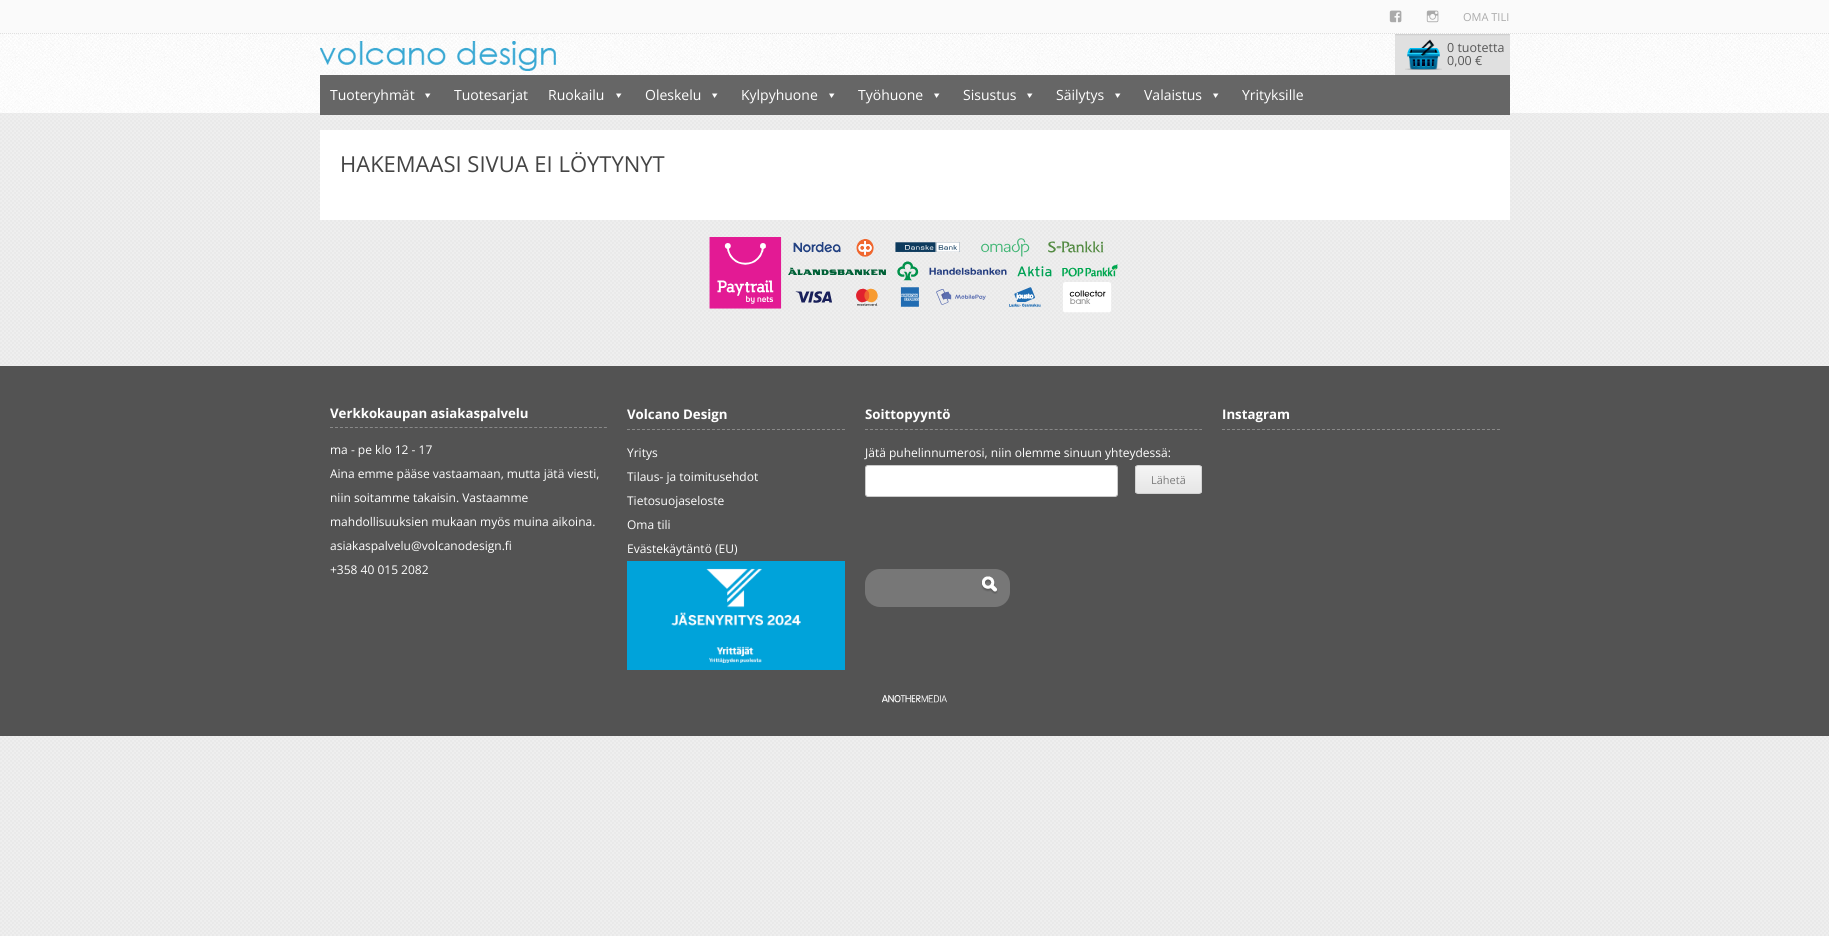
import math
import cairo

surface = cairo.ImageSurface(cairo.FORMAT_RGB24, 1829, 936)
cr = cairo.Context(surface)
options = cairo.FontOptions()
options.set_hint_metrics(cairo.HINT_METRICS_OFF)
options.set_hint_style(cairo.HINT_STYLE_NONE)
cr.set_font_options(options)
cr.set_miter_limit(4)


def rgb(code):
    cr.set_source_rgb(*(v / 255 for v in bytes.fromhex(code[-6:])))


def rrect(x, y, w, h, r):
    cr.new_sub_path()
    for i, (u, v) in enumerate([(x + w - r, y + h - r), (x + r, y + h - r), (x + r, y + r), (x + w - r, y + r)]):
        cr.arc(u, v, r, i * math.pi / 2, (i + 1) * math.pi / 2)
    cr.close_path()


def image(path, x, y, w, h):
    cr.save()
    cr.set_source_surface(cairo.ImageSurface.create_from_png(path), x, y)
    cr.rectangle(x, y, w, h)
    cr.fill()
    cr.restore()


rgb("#ffffff")
cr.paint()
image("img/1.png", 0, 115, 1829, 821)
rgb("#fafafa")
cr.rectangle(0, 0, 1829, 33)
cr.fill()
image("img/2.png", 1389, 10, 13, 13)
image("img/3.png", 1426, 10, 13, 13)
image("img/4.png", 0, 33, 1829, 82)
cr.new_path()
cr.move_to(0, 33.5)
cr.line_to(1829, 33.5)
rgb("#e0e0e0")
cr.set_line_width(1)
cr.set_dash([1, 1])
cr.stroke()
image("img/5.png", 320, 41, 236, 30)
cr.rectangle(1395, 36, 115, 39)
cr.fill()
image("img/6.png", 1395, 34, 115, 2)
image("img/7.png", 1405, 39, 37, 31)
rgb("#666666")
cr.rectangle(320, 75, 1190, 40)
cr.fill()
rgb("#ffffff")
cr.new_path()
cr.move_to(430.5, 93.5)
cr.line_to(427.5, 98)
cr.line_to(425, 93.5)
cr.close_path()
cr.fill()
cr.new_path()
cr.move_to(621.5, 93.5)
cr.line_to(618.5, 98)
cr.line_to(616, 93.5)
cr.close_path()
cr.fill()
cr.new_path()
cr.move_to(717.5, 93.5)
cr.line_to(714.5, 98)
cr.line_to(712, 93.5)
cr.close_path()
cr.fill()
cr.new_path()
cr.move_to(834.5, 93.5)
cr.line_to(831.5, 98)
cr.line_to(829, 93.5)
cr.close_path()
cr.fill()
cr.new_path()
cr.move_to(939.5, 93.5)
cr.line_to(936.5, 98)
cr.line_to(934, 93.5)
cr.close_path()
cr.fill()
cr.new_path()
cr.move_to(1032.5, 93.5)
cr.line_to(1029.5, 98)
cr.line_to(1027, 93.5)
cr.close_path()
cr.fill()
cr.new_path()
cr.move_to(1120.5, 93.5)
cr.line_to(1117.5, 98)
cr.line_to(1115, 93.5)
cr.close_path()
cr.fill()
cr.new_path()
cr.move_to(1218.5, 93.5)
cr.line_to(1215.5, 98)
cr.line_to(1213, 93.5)
cr.close_path()
cr.fill()
cr.rectangle(320, 130, 1190, 90)
cr.fill()
image("img/8.png", 709, 237, 409, 76)
rgb("#535353")
cr.rectangle(0, 366, 1829, 370)
cr.fill()
rgb("#ededed")
cr.rectangle(0, 365, 1829, 1)
cr.fill()
cr.new_path()
cr.move_to(330, 427.5)
cr.line_to(607, 427.5)
rgb("#888888")
cr.set_dash([3, 1.98])
cr.stroke()
cr.new_path()
cr.move_to(627, 429.5)
cr.line_to(845, 429.5)
cr.set_dash([3, 2])
cr.stroke()
image("img/9.png", 627, 561, 218, 109)
cr.new_path()
cr.move_to(865, 429.5)
cr.line_to(1202, 429.5)
cr.set_dash([3, 1.99])
cr.stroke()
rgb("#ffffff")
rrect(865.5, 465.5, 252, 31, 2.5)
cr.fill_preserve()
rgb("#cccccc")
cr.set_dash([])
cr.stroke()
cr.save()
rrect(1135, 465, 67, 29, 3)
cr.clip()
gradient = cairo.LinearGradient(1169, 466, 1169, 493)
gradient.add_color_stop_rgba(0, 0.957, 0.957, 0.957, 1)
gradient.add_color_stop_rgba(1, 0.902, 0.902, 0.902, 1)
cr.set_source(gradient)
cr.rectangle(1135, 466, 67, 27)
cr.fill()
cr.restore()
rrect(1135.5, 465.5, 66, 28, 2.5)
rgb("#d2d2d2")
cr.stroke()
rgb("#777777")
rrect(865, 569, 145, 38, 15)
cr.fill()
image("img/10.png", 981, 576, 17, 18)
cr.new_path()
cr.move_to(1222, 429.5)
cr.line_to(1500, 429.5)
rgb("#888888")
cr.set_dash([3, 2])
cr.stroke()
image("img/11.png", 882, 695, 65, 8)
cr.select_font_face("Open Sans")
cr.set_font_size(11)
rgb("#aaaaaa")
cr.move_to(1463, 21)
cr.show_text("OMA TILI")
cr.set_font_size(12.5)
rgb("#565656")
cr.move_to(1447, 52)
cr.show_text("0 tuotetta")
cr.move_to(1447, 65)
cr.show_text("0,00 €")
cr.set_font_size(14)
rgb("#ffffff")
for x, y, s in [
    (330, 100, "Tuoteryhmät"),
    (454, 100, "Tuotesarjat"),
    (548, 100, "Ruokailu"),
    (645, 100, "Oleskelu"),
    (741, 100, "Kylpyhuone"),
    (858, 100, "Työhuone"),
    (963, 100, "Sisustus"),
    (1056, 100, "Säilytys"),
    (1144, 100, "Valaistus"),
    (1242, 100, "Yrityksille"),
]:
    cr.move_to(x, y)
    cr.show_text(s)
cr.set_font_size(22)
rgb("#444444")
cr.move_to(340, 172)
cr.show_text("HAKEMAASI SIVUA EI LÖYTYNYT")
cr.select_font_face("Open Sans", cairo.FONT_SLANT_NORMAL, cairo.FONT_WEIGHT_BOLD)
cr.set_font_size(13.25)
rgb("#ffffff")
cr.move_to(330, 418)
cr.show_text("Verkkokaupan asiakaspalvelu")
cr.select_font_face("Open Sans")
cr.set_font_size(12)
for x, y, s in [
    (330, 454, "ma - pe klo 12 - 17"),
    (330, 478, "Aina emme pääse vastaamaan, mutta jätä viesti,"),
    (330, 502, "niin soitamme takaisin. Vastaamme"),
    (330, 526, "mahdollisuuksien mukaan myös muina aikoina."),
    (330, 550, "asiakaspalvelu@volcanodesign.fi"),
    (330, 574, "+358 40 015 2082"),
]:
    cr.move_to(x, y)
    cr.show_text(s)
cr.select_font_face("Open Sans", cairo.FONT_SLANT_NORMAL, cairo.FONT_WEIGHT_BOLD)
cr.set_font_size(13.25)
cr.move_to(627, 419)
cr.show_text("Volcano Design")
cr.select_font_face("Open Sans")
cr.set_font_size(12)
for x, y, s in [
    (627, 457, "Yritys"),
    (627, 481, "Tilaus- ja toimitusehdot"),
    (627, 505, "Tietosuojaseloste"),
    (627, 529, "Oma tili"),
    (627, 553, "Evästekäytäntö (EU)"),
]:
    cr.move_to(x, y)
    cr.show_text(s)
cr.select_font_face("Open Sans", cairo.FONT_SLANT_NORMAL, cairo.FONT_WEIGHT_BOLD)
cr.set_font_size(13.25)
cr.move_to(865, 419)
cr.show_text("Soittopyyntö")
cr.select_font_face("Open Sans")
cr.set_font_size(12)
cr.move_to(865, 457)
cr.show_text("Jätä puhelinnumerosi, niin olemme sinuun yhteydessä:")
cr.set_font_size(11)
rgb("#7c7c7c")
cr.move_to(1151, 484)
cr.show_text("Lähetä")
cr.select_font_face("Open Sans", cairo.FONT_SLANT_NORMAL, cairo.FONT_WEIGHT_BOLD)
cr.set_font_size(13.25)
rgb("#ffffff")
cr.move_to(1222, 419)
cr.show_text("Instagram")
surface.write_to_png("page.png")
